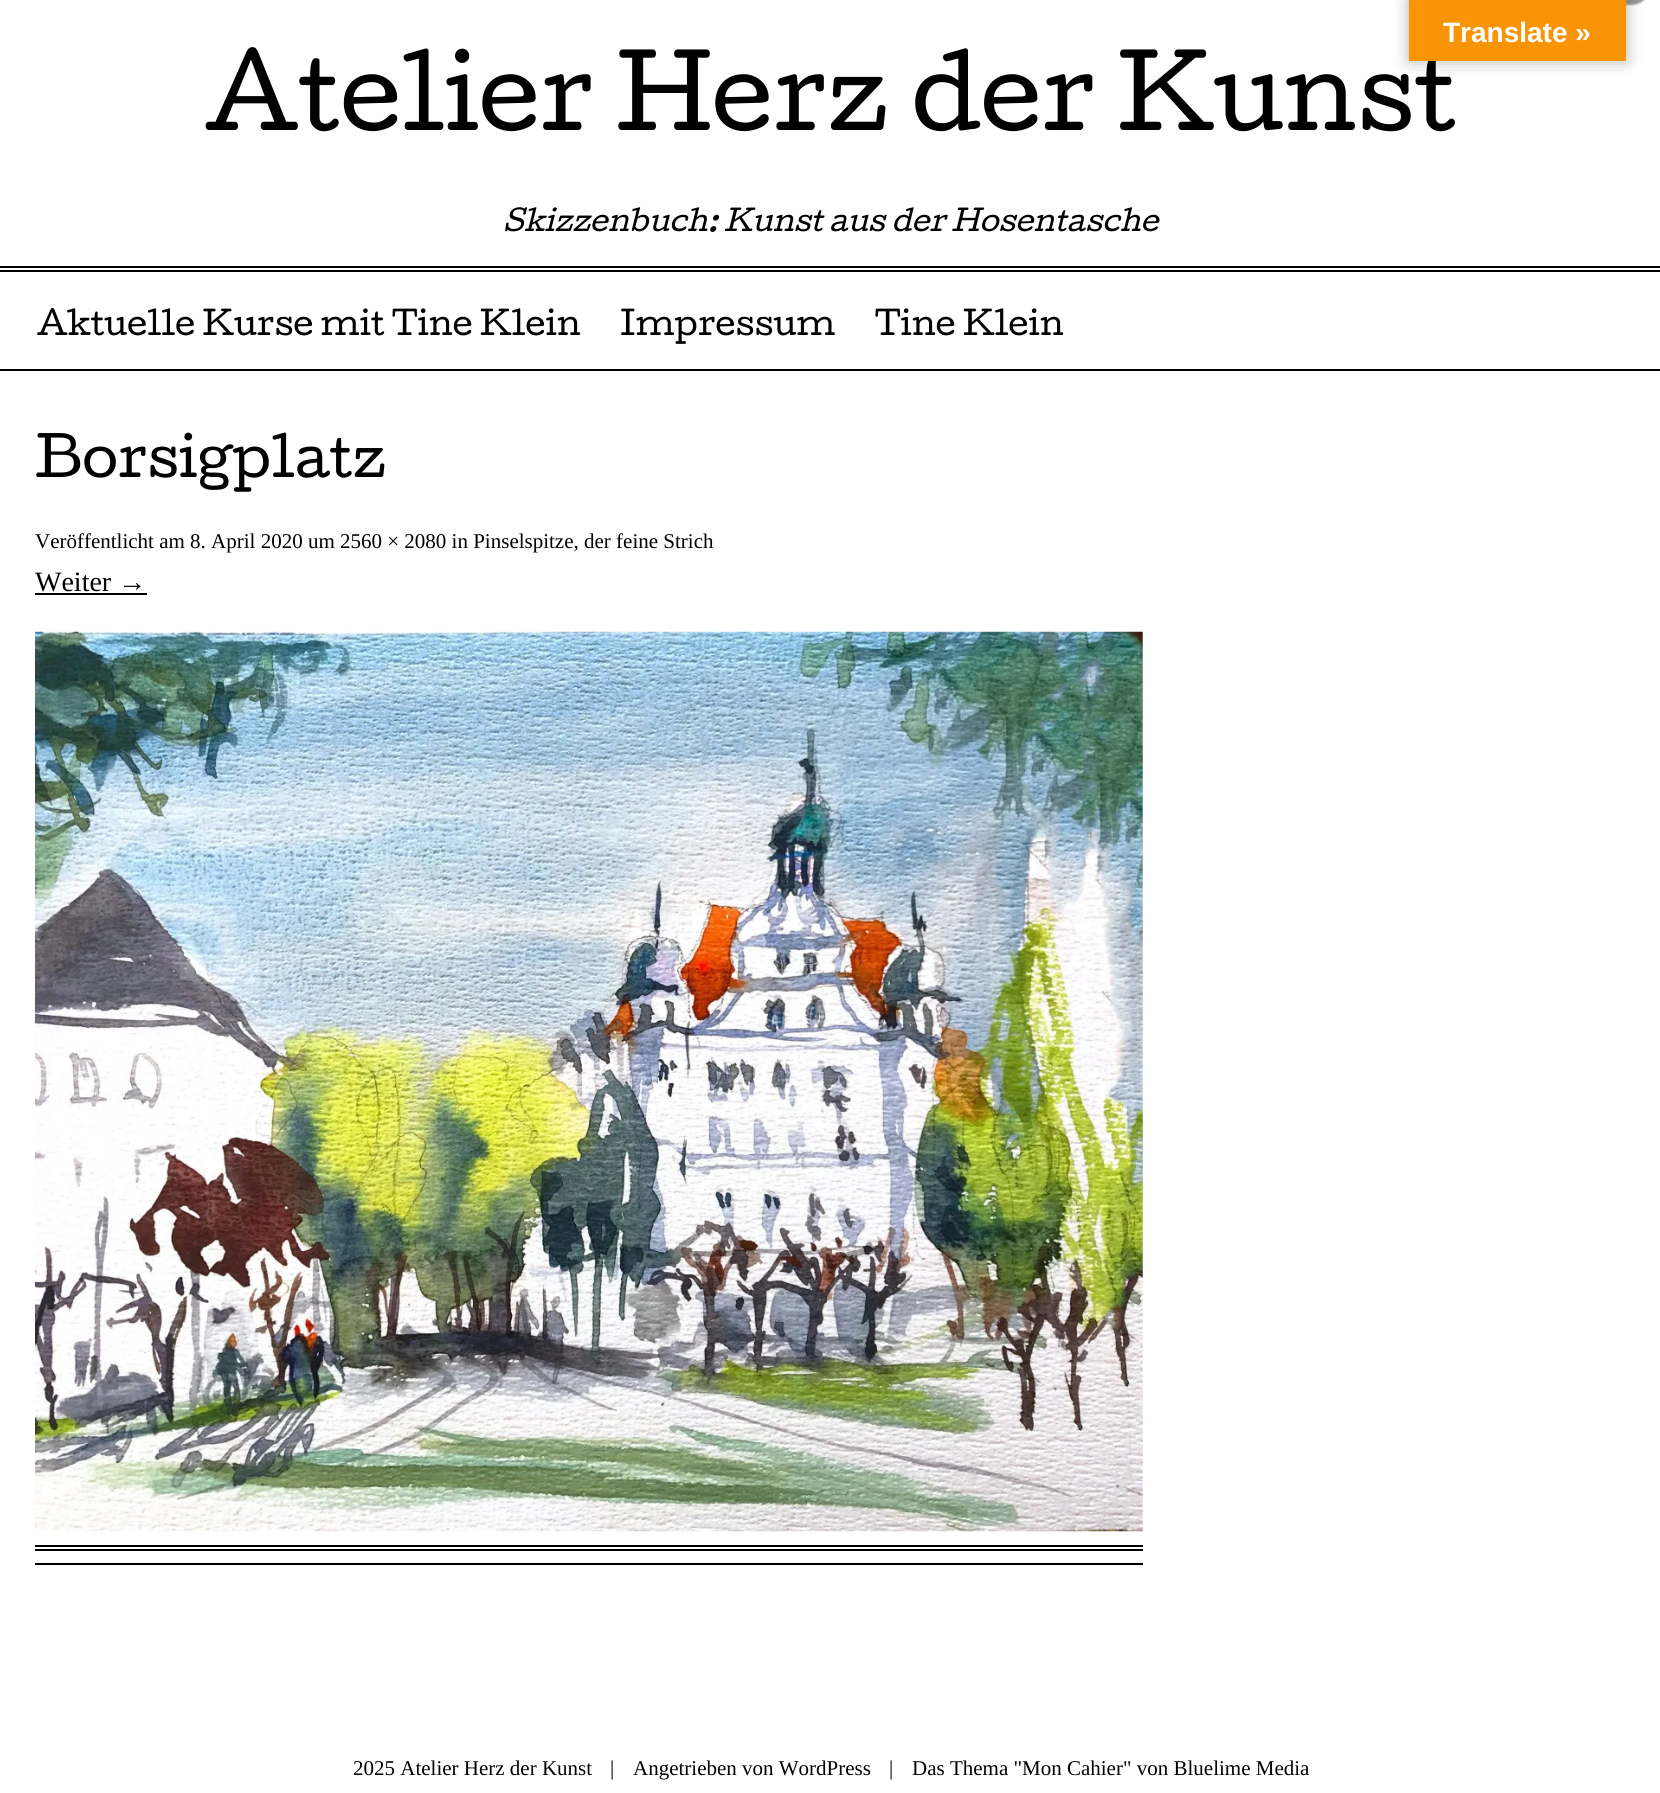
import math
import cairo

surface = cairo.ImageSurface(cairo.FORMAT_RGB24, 1660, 1793)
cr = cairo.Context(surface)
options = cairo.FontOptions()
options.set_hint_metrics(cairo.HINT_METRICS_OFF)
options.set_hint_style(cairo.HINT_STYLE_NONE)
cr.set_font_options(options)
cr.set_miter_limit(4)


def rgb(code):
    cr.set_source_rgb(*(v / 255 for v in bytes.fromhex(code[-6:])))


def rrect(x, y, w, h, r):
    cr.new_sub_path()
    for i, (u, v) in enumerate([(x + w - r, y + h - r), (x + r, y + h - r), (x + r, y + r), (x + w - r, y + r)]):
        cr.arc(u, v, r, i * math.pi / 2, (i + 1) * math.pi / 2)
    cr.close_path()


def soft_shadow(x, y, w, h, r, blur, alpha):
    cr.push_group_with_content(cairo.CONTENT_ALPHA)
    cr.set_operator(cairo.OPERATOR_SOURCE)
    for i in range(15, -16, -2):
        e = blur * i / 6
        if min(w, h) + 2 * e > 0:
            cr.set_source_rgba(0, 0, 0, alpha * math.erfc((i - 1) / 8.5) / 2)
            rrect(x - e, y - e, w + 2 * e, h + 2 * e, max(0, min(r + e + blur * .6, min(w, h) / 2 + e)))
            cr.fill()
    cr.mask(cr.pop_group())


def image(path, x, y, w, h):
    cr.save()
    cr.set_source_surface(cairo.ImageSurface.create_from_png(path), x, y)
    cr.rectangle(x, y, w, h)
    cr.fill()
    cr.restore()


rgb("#ffffff")
cr.paint()
image("img/1.png", 1626, 0, 20, 6)
rgb("#000000")
soft_shadow(1409, 0, 217, 61, 0, 8, 0.3)
for x, y, w, h, color in [
    (0, 369, 1660, 2, "#000000"),
    (0, 266, 1660, 2, "#000000"),
    (0, 270, 1660, 2, "#000000"),
    (35, 593, 112, 2, "#000000"),
]:
    rgb(color)
    cr.rectangle(x, y, w, h)
    cr.fill()
image("img/2.png", 35, 631, 1108, 901)
for x, y, w, h, color in [
    (35, 1545, 1108, 2, "#000000"),
    (35, 1549, 1108, 2, "#000000"),
    (35, 1563, 1108, 2, "#000000"),
]:
    rgb(color)
    cr.rectangle(x, y, w, h)
    cr.fill()
cr.select_font_face("Cutive")
cr.set_font_size(96.25)
cr.move_to(205, 130)
cr.show_text("Atelier Herz der Kunst")
rgb("#f89406")
cr.rectangle(1409, 0, 217, 61)
cr.fill()
cr.select_font_face("Liberation Sans", cairo.FONT_SLANT_NORMAL, cairo.FONT_WEIGHT_BOLD)
cr.set_font_size(28)
rgb("#ffffff")
cr.move_to(1443, 42)
cr.show_text("Translate »")
cr.select_font_face("Cutive", cairo.FONT_SLANT_ITALIC)
rgb("#000000")
cr.move_to(503, 231)
cr.show_text("Skizzenbuch: Kunst aus der Hosentasche")
cr.select_font_face("Cutive")
cr.set_font_size(31.5)
for x, y, s in [
    (37, 335, "Aktuelle Kurse mit Tine Klein"),
    (620, 335, "Impressum"),
    (875, 335, "Tine Klein"),
]:
    cr.move_to(x, y)
    cr.show_text(s)
cr.set_font_size(52.5)
cr.move_to(35, 477)
cr.show_text("Borsigplatz")
cr.select_font_face("Liberation Serif")
cr.set_font_size(21)
cr.move_to(35, 548)
cr.show_text("Veröffentlicht am 8. April 2020 um 2560 × 2080 in Pinselspitze, der feine Strich")
cr.set_font_size(28)
cr.move_to(35, 591)
cr.show_text("Weiter →")
cr.set_font_size(21)
for x, y, s in [
    (353, 1775, "2025 Atelier Herz der Kunst"),
    (610, 1775, "|"),
    (633, 1775, "Angetrieben von WordPress"),
    (889, 1775, "|"),
    (912, 1775, "Das Thema \"Mon Cahier\" von Bluelime Media"),
]:
    cr.move_to(x, y)
    cr.show_text(s)
surface.write_to_png("page.png")
